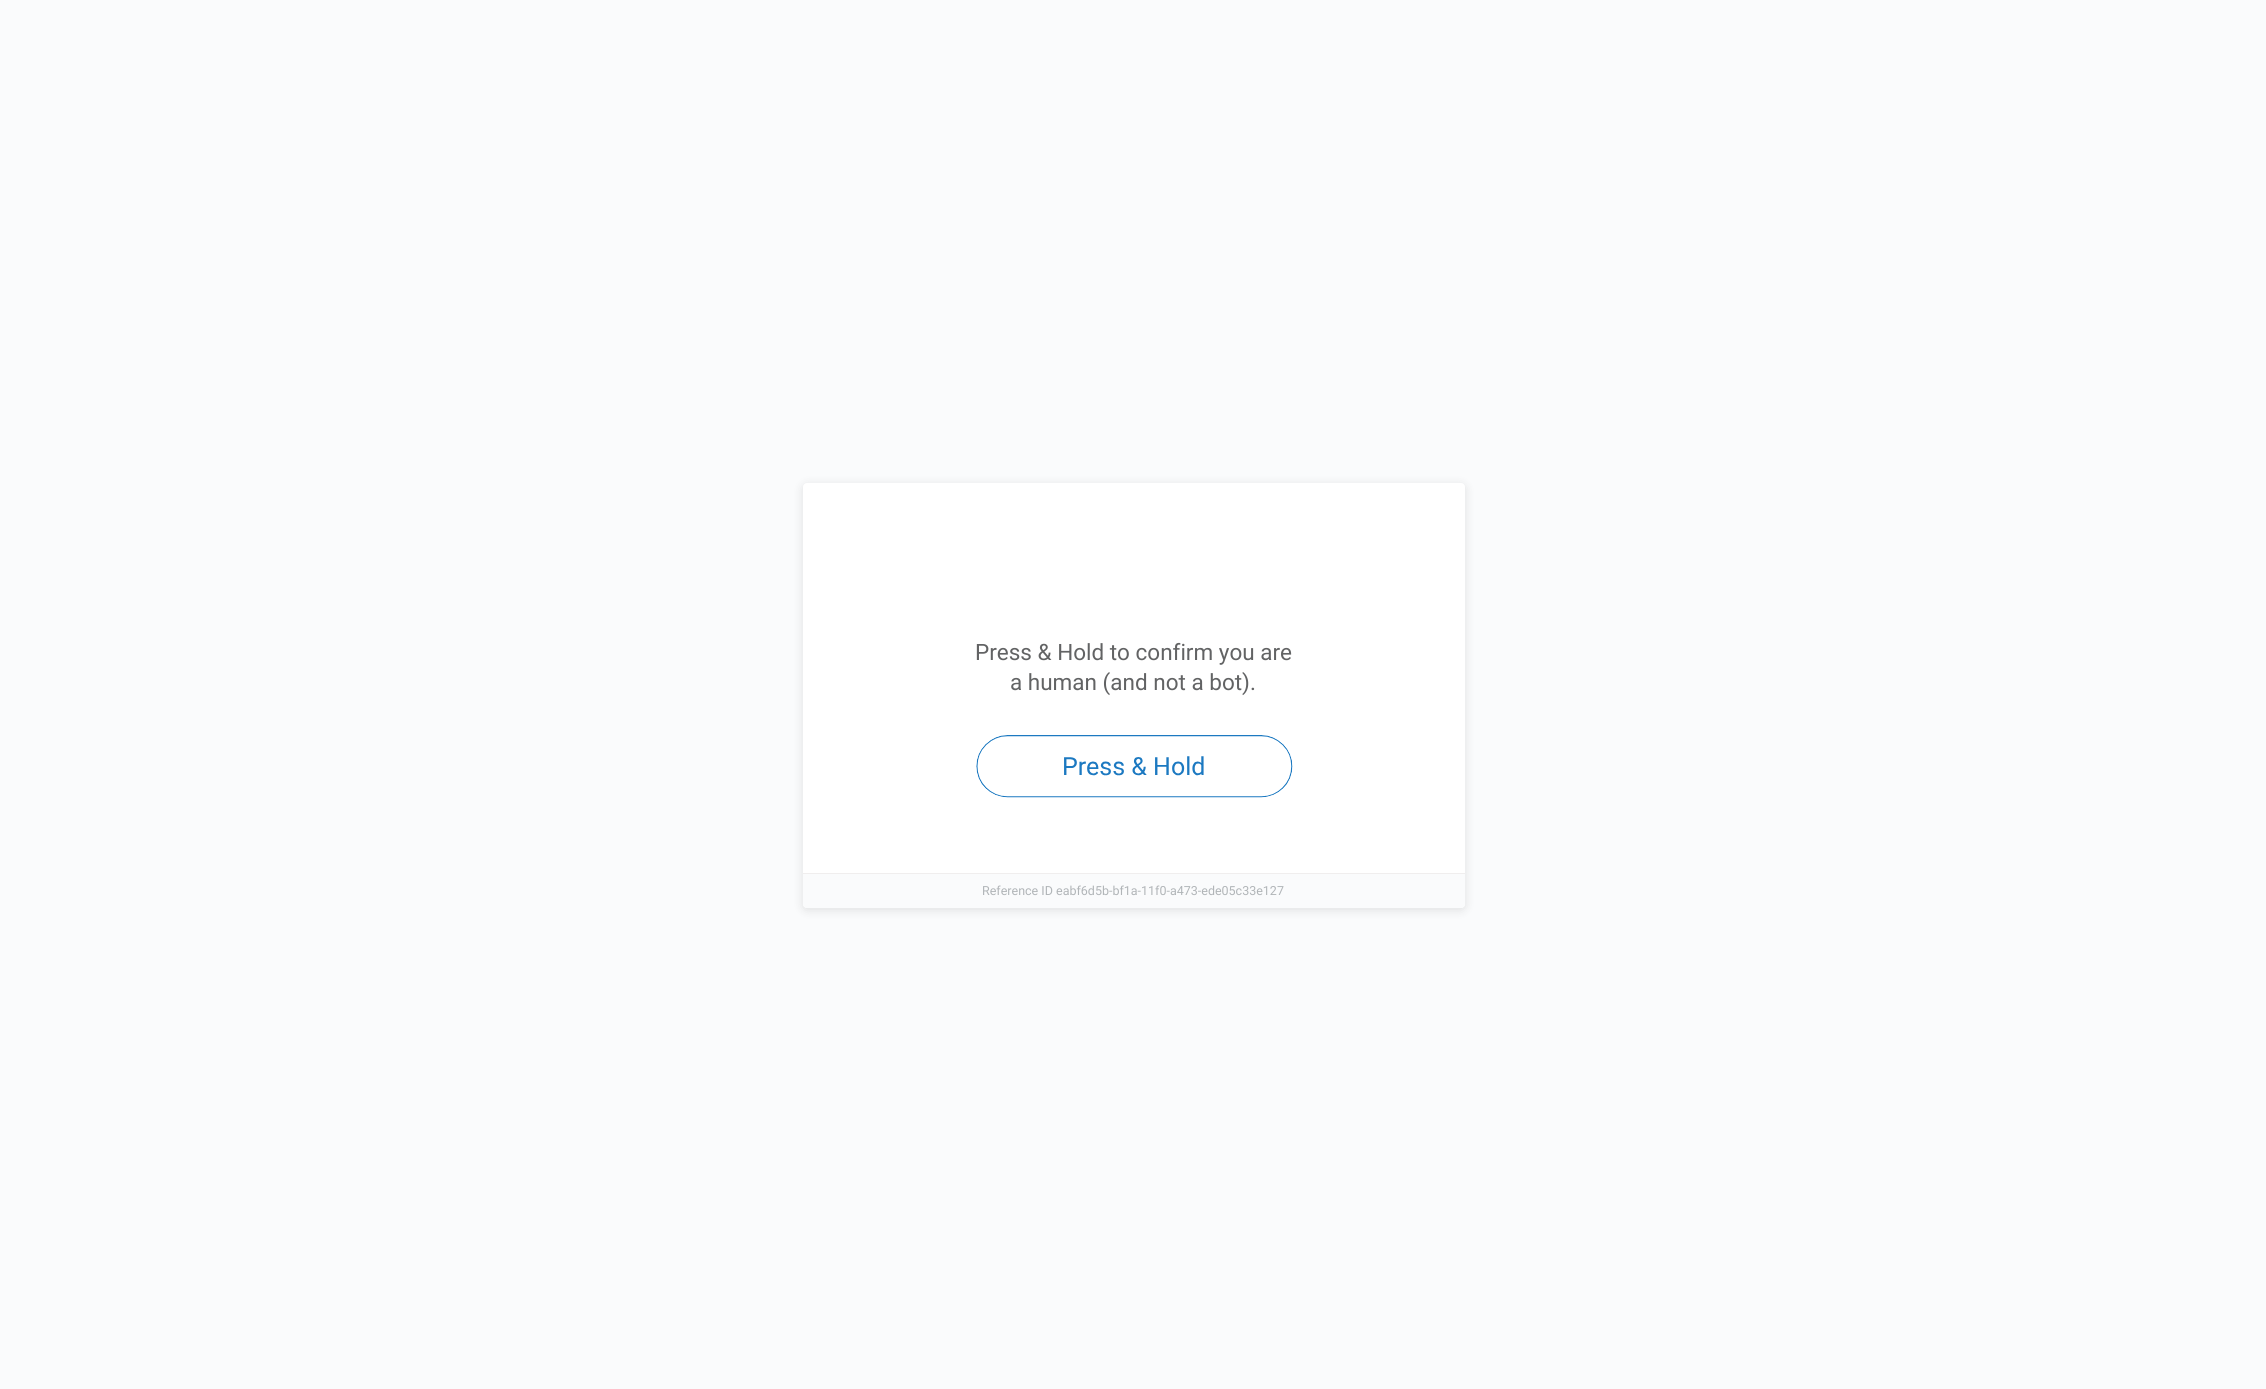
import math
import cairo

surface = cairo.ImageSurface(cairo.FORMAT_RGB24, 2266, 1389)
cr = cairo.Context(surface)
options = cairo.FontOptions()
options.set_hint_metrics(cairo.HINT_METRICS_OFF)
options.set_hint_style(cairo.HINT_STYLE_NONE)
cr.set_font_options(options)
cr.set_miter_limit(4)


def rgb(code):
    cr.set_source_rgb(*(v / 255 for v in bytes.fromhex(code[-6:])))


def rrect(x, y, w, h, r):
    cr.new_sub_path()
    for i, (u, v) in enumerate([(x + w - r, y + h - r), (x + r, y + h - r), (x + r, y + r), (x + w - r, y + r)]):
        cr.arc(u, v, r, i * math.pi / 2, (i + 1) * math.pi / 2)
    cr.close_path()


def soft_shadow(x, y, w, h, r, blur, alpha):
    cr.push_group_with_content(cairo.CONTENT_ALPHA)
    cr.set_operator(cairo.OPERATOR_SOURCE)
    for i in range(15, -16, -2):
        e = blur * i / 6
        if min(w, h) + 2 * e > 0:
            cr.set_source_rgba(0, 0, 0, alpha * math.erfc((i - 1) / 8.5) / 2)
            rrect(x - e, y - e, w + 2 * e, h + 2 * e, max(0, min(r + e + blur * .6, min(w, h) / 2 + e)))
            cr.fill()
    cr.mask(cr.pop_group())


def image(path, x, y, w, h):
    cr.save()
    cr.set_source_surface(cairo.ImageSurface.create_from_png(path), x, y)
    cr.rectangle(x, y, w, h)
    cr.fill()
    cr.restore()


rgb("#fafbfc")
cr.paint()
rgb("#000000")
soft_shadow(804, 486, 660, 423, 2.5, 5.5, 0.13)
rgb("#ffffff")
rrect(803, 483, 662, 425, 4)
cr.fill()
image("img/1.png", 976, 735, 317, 63)
rgb("#fafbfc")
cr.new_path()
cr.move_to(803, 873)
cr.line_to(1465, 873)
cr.line_to(1465, 904)
cr.curve_to(1465, 906, 1463, 908, 1461, 908)
cr.line_to(807, 908)
cr.curve_to(805, 908, 803, 906, 803, 904)
cr.close_path()
cr.fill()
rgb("#f0eeee")
cr.rectangle(803, 873, 662, 1)
cr.fill()
cr.select_font_face("Roboto")
cr.set_font_size(22.5)
rgb("#626364")
cr.move_to(975, 660)
cr.show_text("Press & Hold to confirm you are")
cr.move_to(1010, 690)
cr.show_text("a human (and not a bot).")
cr.set_font_size(12.5)
rgb("#b1b5b8")
cr.move_to(982, 895)
cr.show_text("Reference ID eabf6d5b-bf1a-11f0-a473-ede05c33e127")
surface.write_to_png("page.png")
